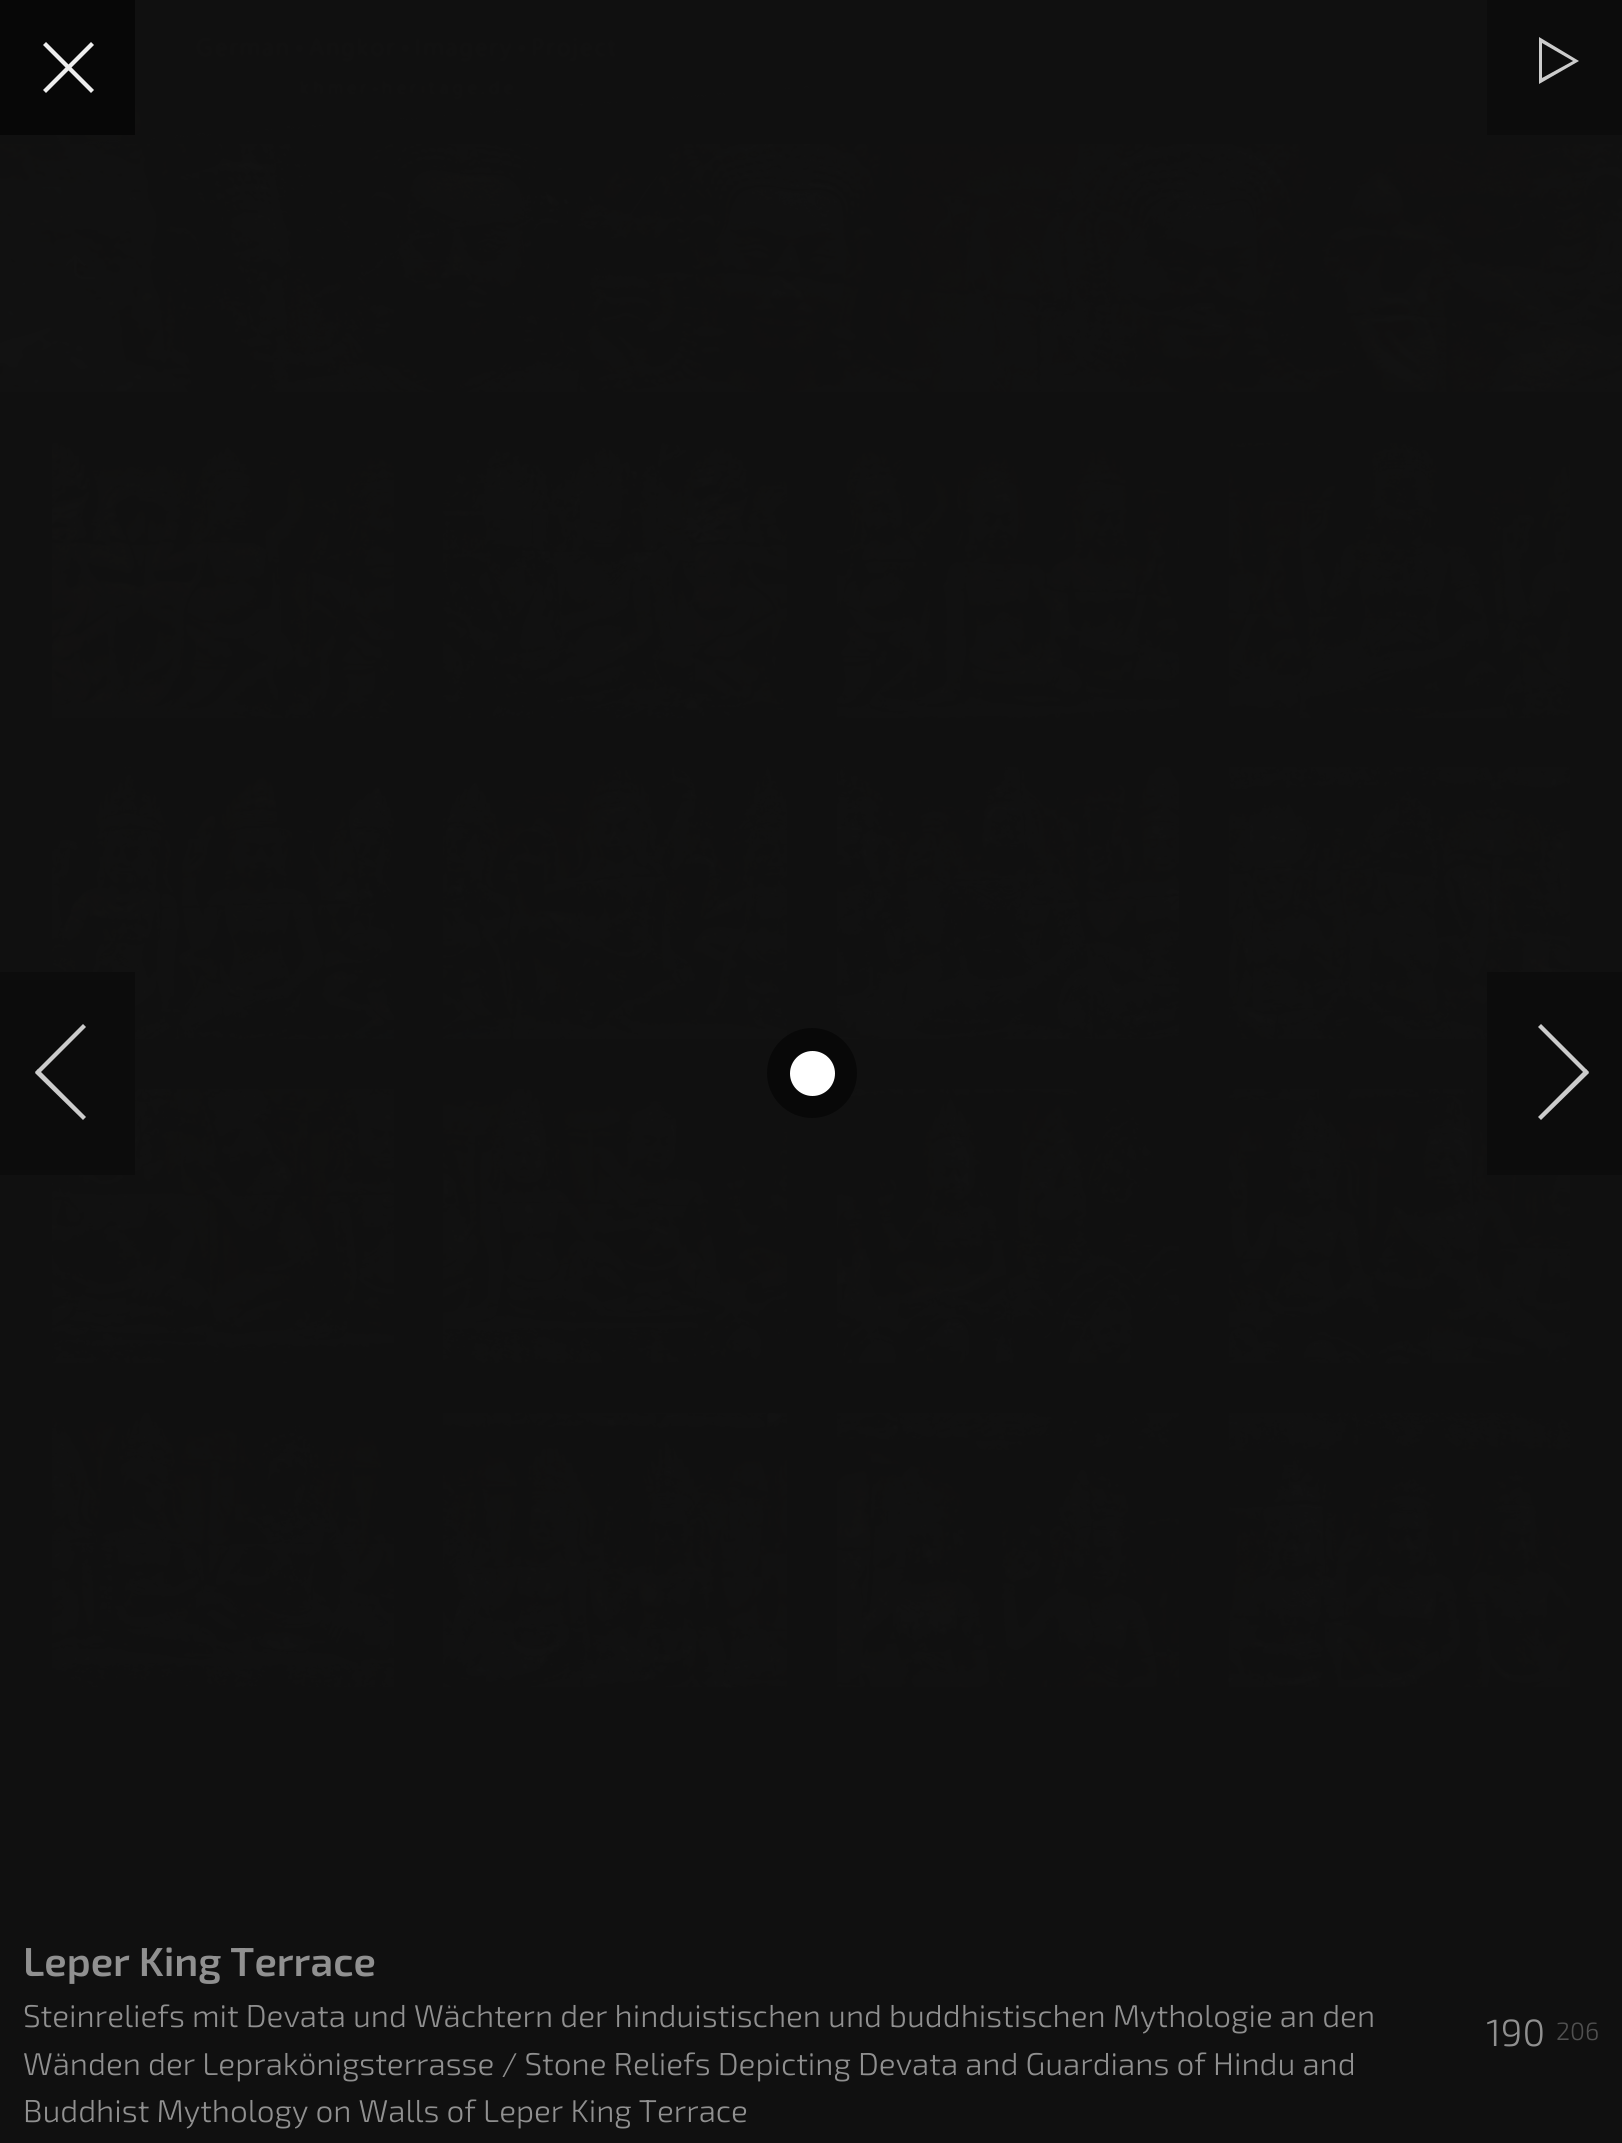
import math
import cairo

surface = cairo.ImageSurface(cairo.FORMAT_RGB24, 1622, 2143)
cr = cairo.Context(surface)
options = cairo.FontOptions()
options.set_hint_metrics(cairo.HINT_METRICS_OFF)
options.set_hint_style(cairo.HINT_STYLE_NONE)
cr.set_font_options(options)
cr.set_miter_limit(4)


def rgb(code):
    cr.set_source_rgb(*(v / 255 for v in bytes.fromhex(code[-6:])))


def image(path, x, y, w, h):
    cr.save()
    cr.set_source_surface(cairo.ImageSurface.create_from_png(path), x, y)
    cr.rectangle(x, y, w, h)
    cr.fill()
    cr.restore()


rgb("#101010")
cr.paint()
image("img/1.png", 55, 0, 796, 144)
image("img/2.png", 0, 144, 1622, 248)
image("img/3.png", 65, 254, 30, 25)
image("img/4.png", 51, 443, 343, 275)
image("img/5.png", 443, 443, 345, 275)
image("img/6.png", 837, 443, 342, 275)
image("img/7.png", 1228, 443, 343, 275)
image("img/8.png", 51, 767, 343, 273)
image("img/9.png", 443, 767, 345, 273)
image("img/10.png", 837, 767, 342, 273)
image("img/11.png", 1228, 767, 343, 273)
image("img/12.png", 51, 1089, 343, 275)
image("img/13.png", 443, 1089, 345, 275)
image("img/14.png", 837, 1089, 342, 275)
image("img/15.png", 1228, 1089, 343, 275)
image("img/16.png", 51, 1413, 343, 275)
image("img/17.png", 443, 1413, 345, 275)
image("img/18.png", 837, 1413, 342, 275)
image("img/19.png", 1228, 1413, 343, 275)
rgb("#070707")
cr.rectangle(0, 0, 135, 135)
cr.fill()
rgb("#eeeeee")
cr.new_path()
cr.move_to(91, 42)
cr.line_to(94, 45)
cr.line_to(46, 93)
cr.line_to(43, 90)
cr.close_path()
cr.fill()
cr.new_path()
cr.move_to(43, 45)
cr.line_to(46, 42)
cr.line_to(94, 90)
cr.line_to(91, 93)
cr.close_path()
cr.fill()
rgb("#0c0c0c")
cr.rectangle(1487, 0, 135, 135)
cr.fill()
rgb("#cccccc")
cr.new_path()
cr.move_to(1542, 43)
cr.line_to(1573, 61)
cr.line_to(1542, 78)
cr.close_path()
cr.move_to(1539, 37)
cr.line_to(1539, 84)
cr.line_to(1579, 61)
cr.close_path()
cr.fill()
rgb("#0c0c0c")
cr.rectangle(0, 972, 135, 203)
cr.fill()
rgb("#cccccc")
cr.new_path()
cr.move_to(83, 1024)
cr.line_to(86, 1027)
cr.line_to(38, 1075)
cr.line_to(35, 1072)
cr.close_path()
cr.fill()
cr.new_path()
cr.move_to(35, 1073)
cr.line_to(38, 1069)
cr.line_to(86, 1117)
cr.line_to(83, 1120)
cr.close_path()
cr.fill()
cr.set_source_rgba(0, 0, 0, 0.5)
cr.arc(812, 1073, 45, 0, 2 * math.pi)
cr.fill()
rgb("#ffffff")
cr.arc(812.5, 1073.5, 22.5, 0, 2 * math.pi)
cr.fill()
rgb("#0c0c0c")
cr.rectangle(1487, 972, 135, 203)
cr.fill()
rgb("#cccccc")
cr.new_path()
cr.move_to(1538, 1027)
cr.line_to(1541, 1024)
cr.line_to(1589, 1072)
cr.line_to(1586, 1075)
cr.close_path()
cr.fill()
cr.new_path()
cr.move_to(1586, 1069)
cr.line_to(1589, 1073)
cr.line_to(1541, 1120)
cr.line_to(1538, 1117)
cr.close_path()
cr.fill()
cr.select_font_face("Exo 2 SemiBold")
cr.set_font_size(40.5)
rgb("#909090")
cr.move_to(23, 1976)
cr.show_text("Leper King Terrace")
cr.select_font_face("Exo 2 Light")
cr.set_font_size(31.5)
for x, y, s in [
    (23, 2027, "Steinreliefs mit Devata und Wächtern der hinduistischen und buddhistischen Mythologie an den"),
    (23, 2075, "Wänden der Leprakönigsterrasse / Stone Reliefs Depicting Devata and Guardians of Hindu and"),
    (23, 2122, "Buddhist Mythology on Walls of Leper King Terrace"),
]:
    cr.move_to(x, y)
    cr.show_text(s)
cr.set_font_size(38)
cr.move_to(1486, 2046)
cr.show_text("190")
cr.set_font_size(25)
rgb("#505050")
cr.move_to(1556, 2040)
cr.show_text("206")
surface.write_to_png("page.png")
